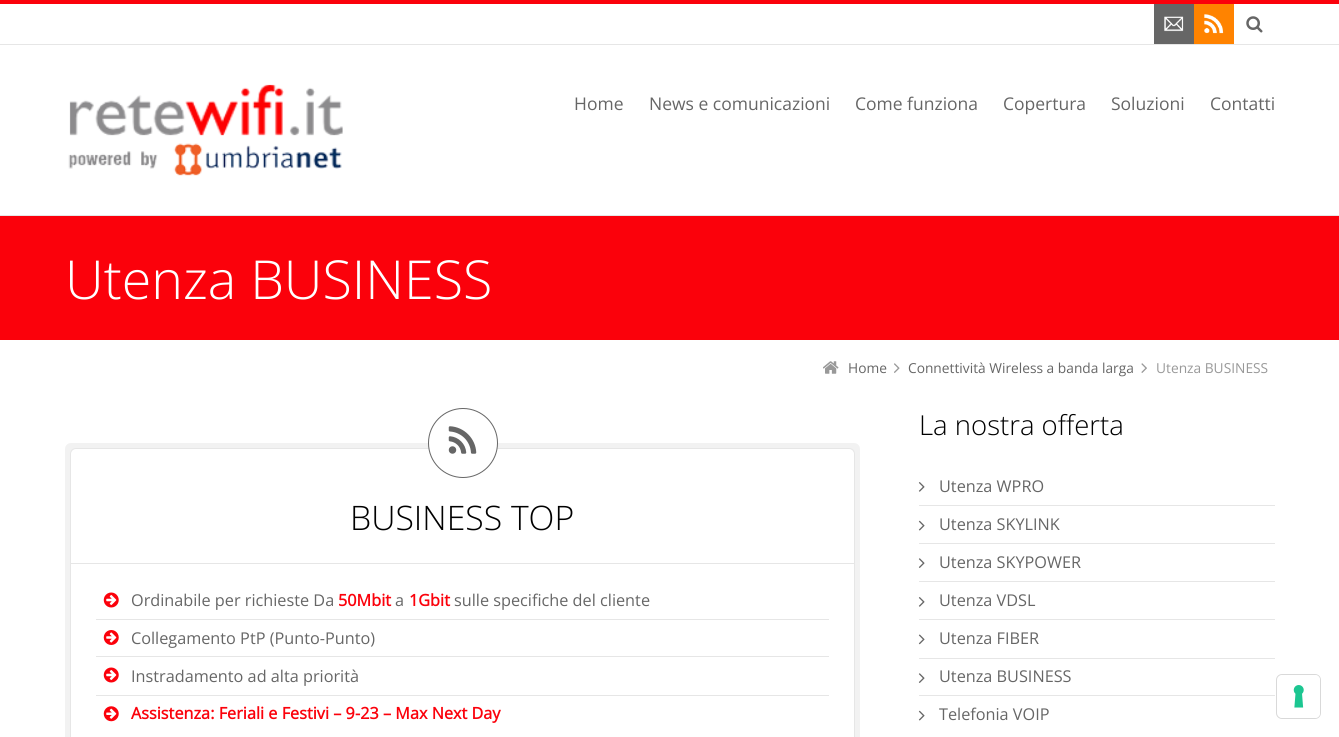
import math
import cairo

surface = cairo.ImageSurface(cairo.FORMAT_RGB24, 1339, 737)
cr = cairo.Context(surface)
options = cairo.FontOptions()
options.set_hint_metrics(cairo.HINT_METRICS_OFF)
options.set_hint_style(cairo.HINT_STYLE_NONE)
cr.set_font_options(options)
cr.set_miter_limit(4)


def rgb(code):
    cr.set_source_rgb(*(v / 255 for v in bytes.fromhex(code[-6:])))


def rrect(x, y, w, h, r):
    cr.new_sub_path()
    for i, (u, v) in enumerate([(x + w - r, y + h - r), (x + r, y + h - r), (x + r, y + r), (x + w - r, y + r)]):
        cr.arc(u, v, r, i * math.pi / 2, (i + 1) * math.pi / 2)
    cr.close_path()


def image(path, x, y, w, h):
    cr.save()
    cr.set_source_surface(cairo.ImageSurface.create_from_png(path), x, y)
    cr.rectangle(x, y, w, h)
    cr.fill()
    cr.restore()


rgb("#ffffff")
cr.paint()
for x, y, w, h, color in [
    (0, 0, 1339, 4, "#fb010b"),
    (0, 44, 1339, 1, "#e6e6e6"),
    (1154, 4, 40, 40, "#666666"),
]:
    rgb(color)
    cr.rectangle(x, y, w, h)
    cr.fill()
image("img/1.png", 1164, 16, 20, 16)
rgb("#ff8300")
cr.rectangle(1194, 4, 40, 40)
cr.fill()
image("img/2.png", 1204, 14, 20, 20)
image("img/3.png", 1246, 16, 17, 17)
image("img/4.png", 68, 84, 275, 92)
rgb("#e6e6e6")
cr.rectangle(0, 215, 1339, 1)
cr.fill()
rgb("#fb010b")
cr.rectangle(0, 216, 1339, 124)
cr.fill()
image("img/5.png", 823, 361, 16, 13)
image("img/6.png", 894, 363, 6, 10)
image("img/7.png", 1141, 363, 6, 10)
rgb("#f2f2f2")
rrect(65, 443, 795, 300, 6)
cr.fill()
rgb("#ffffff")
rrect(70.5, 448.5, 784, 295, 5.5)
cr.fill_preserve()
rgb("#e6e6e6")
cr.set_line_width(1)
cr.stroke()
rgb("#ffffff")
cr.arc(463, 443, 34.5, 0, 2 * math.pi)
cr.fill_preserve()
rgb("#666666")
cr.stroke()
image("img/8.png", 448, 426, 29, 28)
rgb("#e6e6e6")
cr.rectangle(71, 563, 783, 1)
cr.fill()
image("img/9.png", 103, 592, 16, 16)
cr.rectangle(96, 619, 733, 1)
cr.fill()
image("img/10.png", 103, 630, 16, 15)
cr.rectangle(96, 656, 733, 1)
cr.fill()
image("img/9.png", 103, 667, 16, 16)
cr.rectangle(96, 695, 733, 1)
cr.fill()
image("img/11.png", 103, 706, 16, 16)
image("img/12.png", 918, 482, 7, 10)
cr.rectangle(919, 505, 356, 1)
cr.fill()
image("img/13.png", 918, 520, 7, 11)
cr.rectangle(919, 543, 356, 1)
cr.fill()
image("img/14.png", 918, 558, 7, 10)
cr.rectangle(919, 581, 356, 1)
cr.fill()
image("img/12.png", 918, 597, 7, 10)
cr.rectangle(919, 619, 356, 1)
cr.fill()
image("img/15.png", 918, 634, 7, 11)
cr.rectangle(919, 658, 356, 1)
cr.fill()
image("img/14.png", 918, 673, 7, 10)
cr.rectangle(919, 695, 356, 1)
cr.fill()
image("img/13.png", 918, 710, 7, 11)
rrect(1276.5, 674.5, 44, 44, 5.5)
rgb("#d9d9d9")
cr.stroke()
rgb("#ffffff")
rrect(1278, 675, 42, 43, 5)
cr.fill()
image("img/16.png", 1293, 685, 11, 23)
cr.select_font_face("Open Sans")
cr.set_font_size(17.5)
rgb("#666666")
for x, y, s in [
    (574, 110, "Home"),
    (649, 110, "News e comunicazioni"),
    (855, 110, "Come funziona"),
    (1003, 110, "Copertura"),
    (1111, 110, "Soluzioni"),
    (1210, 110, "Contatti"),
]:
    cr.move_to(x, y)
    cr.show_text(s)
cr.select_font_face("Open Sans Light")
cr.set_font_size(53.75)
rgb("#ffffff")
cr.move_to(65, 299)
cr.show_text("Utenza BUSINESS")
cr.select_font_face("Open Sans")
cr.set_font_size(13.75)
rgb("#666666")
cr.move_to(848, 373)
cr.show_text("Home")
cr.move_to(908, 373)
cr.show_text("Connettività Wireless a banda larga")
rgb("#999999")
cr.move_to(1156, 373)
cr.show_text("Utenza BUSINESS")
cr.select_font_face("Open Sans Light")
cr.set_font_size(33.75)
rgb("#000000")
cr.move_to(350, 530)
cr.show_text("BUSINESS TOP")
cr.select_font_face("Open Sans")
cr.set_font_size(16.25)
rgb("#666666")
cr.move_to(131, 606)
cr.show_text("Ordinabile per richieste Da")
cr.select_font_face("Open Sans", cairo.FONT_SLANT_NORMAL, cairo.FONT_WEIGHT_BOLD)
rgb("#fb010b")
cr.move_to(338, 606)
cr.show_text("50Mbit")
cr.select_font_face("Open Sans")
rgb("#666666")
cr.move_to(395, 606)
cr.show_text("a")
cr.select_font_face("Open Sans", cairo.FONT_SLANT_NORMAL, cairo.FONT_WEIGHT_BOLD)
rgb("#fb010b")
cr.move_to(409, 606)
cr.show_text("1Gbit")
cr.select_font_face("Open Sans")
rgb("#666666")
for x, y, s in [
    (454, 606, "sulle specifiche del cliente"),
    (131, 644, "Collegamento PtP (Punto-Punto)"),
    (131, 682, "Instradamento ad alta priorità"),
]:
    cr.move_to(x, y)
    cr.show_text(s)
cr.select_font_face("Open Sans", cairo.FONT_SLANT_NORMAL, cairo.FONT_WEIGHT_BOLD)
rgb("#fb010b")
cr.move_to(131, 719)
cr.show_text("Assistenza: Feriali e Festivi – 9-23 – Max Next Day")
cr.select_font_face("Open Sans Light")
cr.set_font_size(27.5)
rgb("#000000")
cr.move_to(919, 435)
cr.show_text("La nostra offerta")
cr.select_font_face("Open Sans")
cr.set_font_size(16.25)
rgb("#666666")
for x, y, s in [
    (939, 492, "Utenza WPRO"),
    (939, 530, "Utenza SKYLINK"),
    (939, 568, "Utenza SKYPOWER"),
    (939, 606, "Utenza VDSL"),
    (939, 644, "Utenza FIBER"),
    (939, 682, "Utenza BUSINESS"),
    (939, 720, "Telefonia VOIP"),
]:
    cr.move_to(x, y)
    cr.show_text(s)
surface.write_to_png("page.png")
